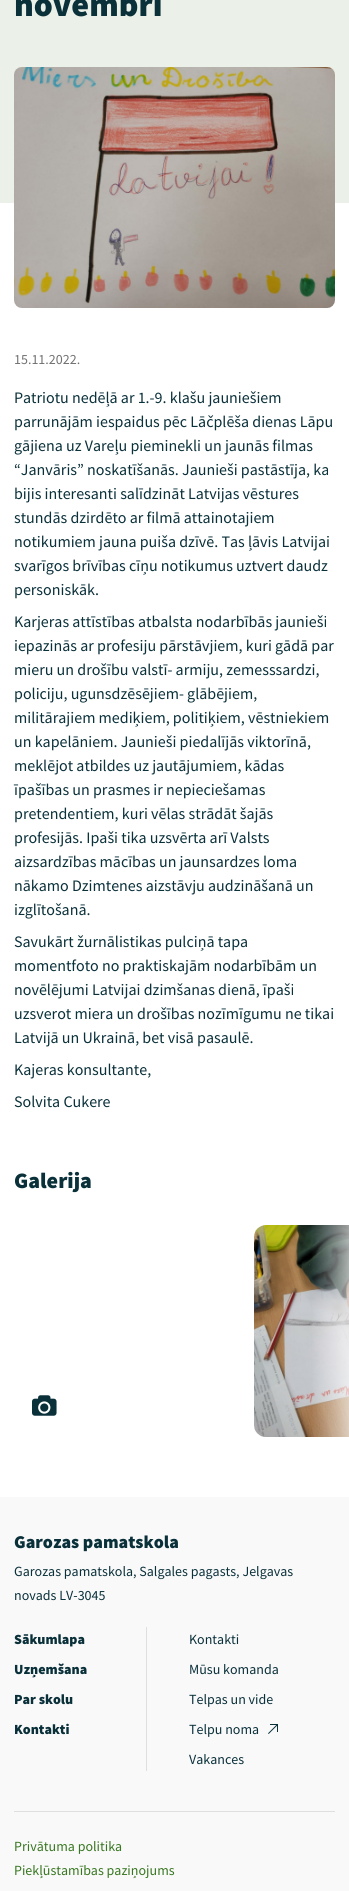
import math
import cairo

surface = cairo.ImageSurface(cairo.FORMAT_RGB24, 349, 1891)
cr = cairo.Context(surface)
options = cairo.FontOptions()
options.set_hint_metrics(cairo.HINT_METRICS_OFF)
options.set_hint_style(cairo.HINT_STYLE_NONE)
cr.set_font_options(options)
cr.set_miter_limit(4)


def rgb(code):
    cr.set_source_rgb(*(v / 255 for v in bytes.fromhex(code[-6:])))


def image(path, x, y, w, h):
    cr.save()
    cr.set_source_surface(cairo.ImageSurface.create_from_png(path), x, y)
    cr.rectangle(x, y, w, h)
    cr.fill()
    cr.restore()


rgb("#ffffff")
cr.paint()
rgb("#ebf1e8")
cr.rectangle(0, 0, 349, 203)
cr.fill()
image("img/1.png", 14, 67, 321, 241)
image("img/2.png", 32, 1395, 25, 21)
image("img/3.png", 254, 1225, 95, 212)
for x, y, w, h, color in [
    (0, 1497, 349, 394, "#f9f9f9"),
    (14, 1811, 321, 1, "#dfdfde"),
    (146, 1627, 1, 144, "#dfdfde"),
]:
    rgb(color)
    cr.rectangle(x, y, w, h)
    cr.fill()
image("img/4.png", 268, 1724, 10, 10)
cr.select_font_face("Source Sans Pro Black")
cr.set_font_size(34)
rgb("#0a303a")
cr.move_to(14, 16)
cr.show_text("novembrī")
cr.select_font_face("Source Sans Pro")
cr.set_font_size(14)
rgb("#717171")
cr.move_to(14, 364)
cr.show_text("15.11.2022.")
cr.set_font_size(16)
rgb("#0a303a")
for x, y, s in [
    (14, 403, "Patriotu nedēļā ar 1.-9. klašu jauniešiem"),
    (14, 427, "parrunājām iespaidus pēc Lāčplēša dienas Lāpu"),
    (14, 451, "gājiena uz Vareļu pieminekli un jaunās filmas"),
    (14, 475, "“Janvāris” noskatīšanās. Jaunieši pastāstīja, ka"),
    (14, 499, "bijis interesanti salīdzināt Latvijas vēstures"),
    (14, 523, "stundās dzirdēto ar filmā attainotajiem"),
    (14, 547, "notikumiem jauna puiša dzīvē. Tas ļāvis Latvijai"),
    (14, 571, "svarīgos brīvības cīņu notikumus uztvert daudz"),
    (14, 595, "personiskāk."),
    (14, 627, "Karjeras attīstības atbalsta nodarbībās jaunieši"),
    (14, 651, "iepazinās ar profesiju pārstāvjiem, kuri gādā par"),
    (14, 675, "mieru un drošību valstī- armiju, zemesssardzi,"),
    (14, 699, "policiju, ugunsdzēsējiem- glābējiem,"),
    (14, 723, "militārajiem mediķiem, politiķiem, vēstniekiem"),
    (14, 747, "un kapelāniem. Jaunieši piedalījās viktorīnā,"),
    (14, 771, "meklējot atbildes uz jautājumiem, kādas"),
    (14, 795, "īpašības un prasmes ir nepieciešamas"),
    (14, 819, "pretendentiem, kuri vēlas strādāt šajās"),
    (14, 843, "profesijās. Ipaši tika uzsvērta arī Valsts"),
    (14, 867, "aizsardzības mācības un jaunsardzes loma"),
    (14, 891, "nākamo Dzimtenes aizstāvju audzināšanā un"),
    (14, 915, "izglītošanā."),
    (14, 947, "Savukārt žurnālistikas pulciņā tapa"),
    (14, 971, "momentfoto no praktiskajām nodarbībām un"),
    (14, 995, "novēlējumi Latvijai dzimšanas dienā, īpaši"),
    (14, 1019, "uzsverot miera un drošības nozīmīgumu ne tikai"),
    (14, 1043, "Latvijā un Ukrainā, bet visā pasaulē."),
    (14, 1075, "Kajeras konsultante,"),
    (14, 1107, "Solvita Cukere"),
]:
    cr.move_to(x, y)
    cr.show_text(s)
cr.select_font_face("Source Sans Pro Black")
cr.set_font_size(22)
cr.move_to(14, 1188)
cr.show_text("Galerija")
cr.set_font_size(18)
cr.move_to(14, 1548)
cr.show_text("Garozas pamatskola")
cr.select_font_face("Source Sans Pro")
cr.set_font_size(14)
cr.move_to(14, 1576)
cr.show_text("Garozas pamatskola, Salgales pagasts, Jelgavas")
cr.move_to(14, 1600)
cr.show_text("novads LV-3045")
cr.select_font_face("Source Sans Pro Black")
for x, y, s in [
    (14, 1644, "Sākumlapa"),
    (14, 1674, "Uzņemšana"),
    (14, 1704, "Par skolu"),
    (14, 1734, "Kontakti"),
]:
    cr.move_to(x, y)
    cr.show_text(s)
cr.select_font_face("Source Sans Pro")
for x, y, s in [
    (189, 1644, "Kontakti"),
    (189, 1674, "Mūsu komanda"),
    (189, 1704, "Telpas un vide"),
    (189, 1734, "Telpu noma"),
    (189, 1764, "Vakances"),
]:
    cr.move_to(x, y)
    cr.show_text(s)
rgb("#387621")
cr.move_to(14, 1851)
cr.show_text("Privātuma politika")
cr.move_to(14, 1875)
cr.show_text("Piekļūstamības paziņojums")
surface.write_to_png("page.png")
